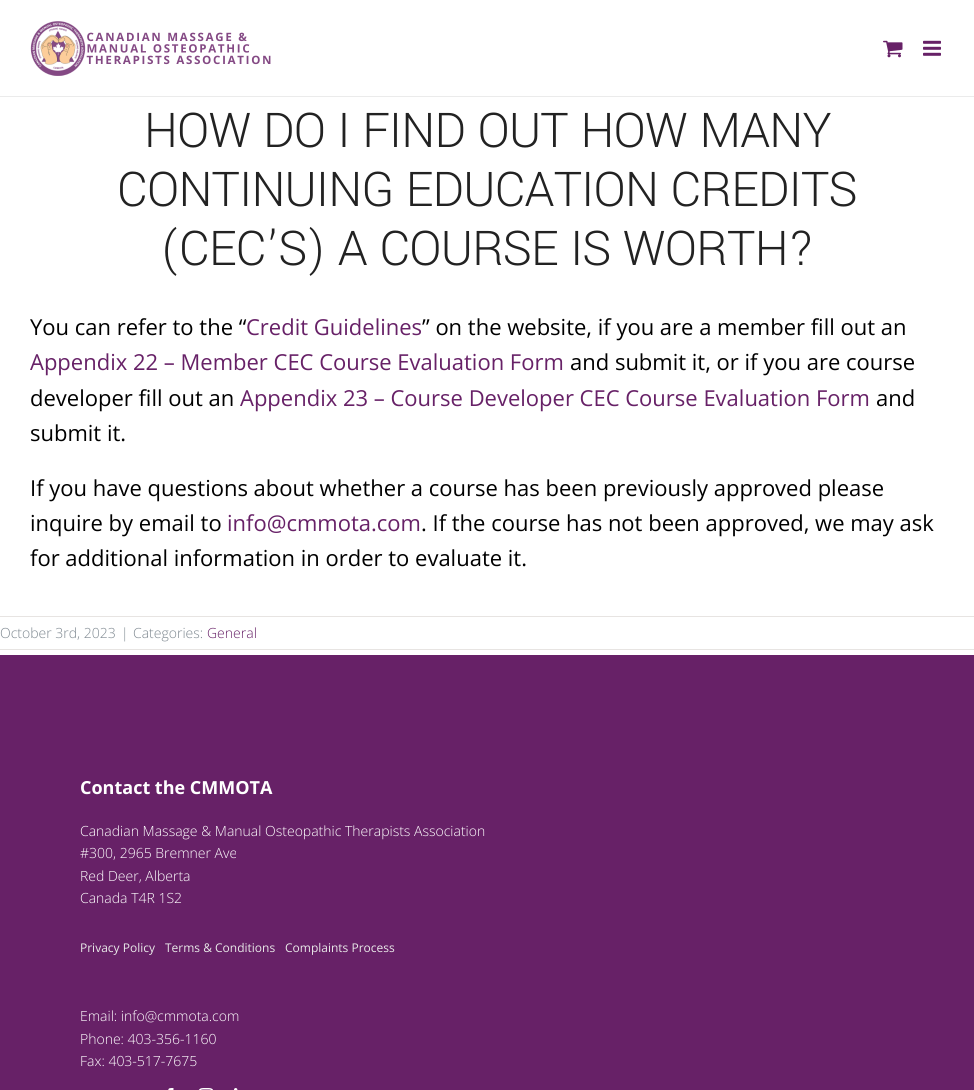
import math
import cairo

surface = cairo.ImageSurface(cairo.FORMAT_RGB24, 974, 1090)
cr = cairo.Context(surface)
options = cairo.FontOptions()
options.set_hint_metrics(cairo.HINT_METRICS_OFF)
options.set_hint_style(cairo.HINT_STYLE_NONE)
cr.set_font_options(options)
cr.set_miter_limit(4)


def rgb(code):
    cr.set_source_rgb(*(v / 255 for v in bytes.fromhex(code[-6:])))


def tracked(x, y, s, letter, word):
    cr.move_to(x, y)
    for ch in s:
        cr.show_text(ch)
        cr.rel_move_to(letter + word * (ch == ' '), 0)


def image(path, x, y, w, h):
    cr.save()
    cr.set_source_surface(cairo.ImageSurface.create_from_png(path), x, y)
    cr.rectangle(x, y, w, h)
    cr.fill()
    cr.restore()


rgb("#ffffff")
cr.paint()
rgb("#ebebeb")
cr.rectangle(0, 96, 974, 1)
cr.fill()
image("img/1.png", 30, 21, 241, 55)
image("img/2.png", 883, 40, 20, 18)
image("img/3.png", 923, 40, 18, 16)
for x, y, w, h, color in [
    (0, 616, 974, 1, "#e7e4e2"),
    (0, 649, 974, 1, "#e7e4e2"),
    (0, 655, 974, 435, "#672167"),
]:
    rgb(color)
    cr.rectangle(x, y, w, h)
    cr.fill()
image("img/4.png", 168, 1088, 6, 2)
image("img/5.png", 198, 1088, 15, 2)
image("img/6.png", 234, 1088, 4, 2)
cr.select_font_face("Yantramanav Light")
cr.set_font_size(53.25)
rgb("#222222")
for x, y, s in [
    (144, 147, "HOW DO I FIND OUT HOW MANY"),
    (117, 206, "CONTINUING EDUCATION CREDITS"),
    (160, 265, "(CEC’S) A COURSE IS WORTH?"),
]:
    tracked(x, y, s, -0.8, 0)
cr.select_font_face("Open Sans")
cr.set_font_size(22)
rgb("#000000")
cr.move_to(30, 335)
cr.show_text("You can refer to the “")
rgb("#672167")
cr.move_to(246, 335)
cr.show_text("Credit Guidelines")
rgb("#000000")
cr.move_to(422, 335)
cr.show_text("” on the website, if you are a member fill out an")
rgb("#672167")
cr.move_to(30, 370)
cr.show_text("Appendix 22 – Member CEC Course Evaluation Form")
rgb("#000000")
cr.move_to(570, 370)
cr.show_text("and submit it, or if you are course")
cr.move_to(30, 406)
cr.show_text("developer fill out an")
rgb("#672167")
cr.move_to(240, 406)
cr.show_text("Appendix 23 – Course Developer CEC Course Evaluation Form")
rgb("#000000")
for x, y, s in [
    (876, 406, "and"),
    (30, 441, "submit it."),
    (30, 496, "If you have questions about whether a course has been previously approved please"),
    (30, 531, "inquire by email to"),
]:
    cr.move_to(x, y)
    cr.show_text(s)
rgb("#672167")
cr.move_to(227, 531)
cr.show_text("info@cmmota.com")
rgb("#000000")
cr.move_to(421, 531)
cr.show_text(". If the course has not been approved, we may ask")
cr.move_to(30, 566)
cr.show_text("for additional information in order to evaluate it.")
cr.select_font_face("Open Sans Light")
cr.set_font_size(14)
rgb("#7e8890")
for x, y, s in [
    (0, 638, "October 3rd, 2023"),
    (121, 638, "|"),
    (133, 638, "Categories:"),
]:
    cr.move_to(x, y)
    cr.show_text(s)
rgb("#672167")
cr.move_to(207, 638)
cr.show_text("General")
cr.select_font_face("Open Sans", cairo.FONT_SLANT_NORMAL, cairo.FONT_WEIGHT_BOLD)
cr.set_font_size(18)
rgb("#ffffff")
cr.move_to(80, 794)
cr.show_text("Contact the CMMOTA")
cr.select_font_face("Open Sans Light")
cr.set_font_size(14)
for x, y, s in [
    (80, 836, "Canadian Massage & Manual Osteopathic Therapists Association"),
    (80, 858, "#300, 2965 Bremner Ave"),
    (80, 881, "Red Deer, Alberta"),
    (80, 903, "Canada T4R 1S2"),
]:
    cr.move_to(x, y)
    cr.show_text(s)
cr.select_font_face("Open Sans")
cr.set_font_size(12)
rgb("#e8e8e8")
for x, y, s in [
    (80, 952, "Privacy Policy"),
    (165, 952, "Terms & Conditions"),
    (285, 952, "Complaints Process"),
]:
    cr.move_to(x, y)
    cr.show_text(s)
cr.select_font_face("Open Sans Light")
cr.set_font_size(14)
rgb("#ffffff")
for x, y, s in [
    (80, 1021, "Email: info@cmmota.com"),
    (80, 1044, "Phone: 403-356-1160"),
    (80, 1066, "Fax: 403-517-7675"),
]:
    cr.move_to(x, y)
    cr.show_text(s)
surface.write_to_png("page.png")
